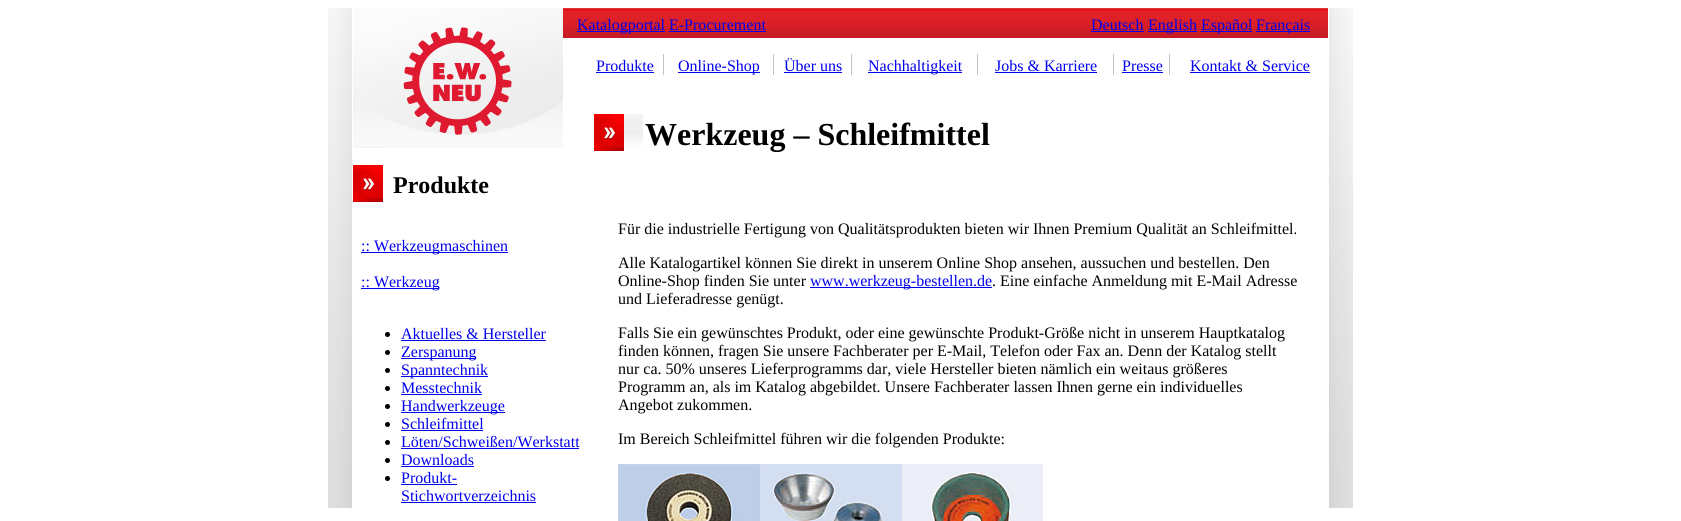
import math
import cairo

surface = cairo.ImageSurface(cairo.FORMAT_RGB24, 1681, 521)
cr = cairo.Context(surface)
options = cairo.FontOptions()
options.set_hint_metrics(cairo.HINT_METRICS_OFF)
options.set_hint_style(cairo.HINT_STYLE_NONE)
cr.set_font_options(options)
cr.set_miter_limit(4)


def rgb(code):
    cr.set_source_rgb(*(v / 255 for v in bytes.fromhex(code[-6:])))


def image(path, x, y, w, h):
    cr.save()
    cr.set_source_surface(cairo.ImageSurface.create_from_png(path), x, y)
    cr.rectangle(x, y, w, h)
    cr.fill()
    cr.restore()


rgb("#ffffff")
cr.paint()
image("img/1.png", 328, 8, 24, 500)
image("img/2.png", 563, 8, 14, 30)
image("img/3.png", 353, 8, 210, 19)
image("img/4.png", 577, 8, 333, 30)
rgb("#0000ee")
cr.rectangle(577, 31, 88, 1)
cr.fill()
cr.rectangle(669, 31, 97, 1)
cr.fill()
image("img/5.png", 910, 8, 418, 30)
for x, y, w, h, color in [
    (1091, 31, 53, 1, "#0000ee"),
    (1148, 31, 49, 1, "#0000ee"),
    (1201, 31, 51, 1, "#0000ee"),
    (1256, 31, 54, 1, "#0000ee"),
]:
    rgb(color)
    cr.rectangle(x, y, w, h)
    cr.fill()
image("img/6.png", 353, 27, 210, 121)
image("img/7.png", 353, 165, 30, 37)
cr.rectangle(361, 252, 147, 1)
cr.fill()
cr.rectangle(361, 288, 78, 1)
cr.fill()
rgb("#000000")
cr.arc(387.5, 334.5, 2.5, 0, 2 * math.pi)
cr.fill()
rgb("#0000ee")
cr.rectangle(401, 340, 145, 1)
cr.fill()
rgb("#000000")
cr.arc(387.5, 352.5, 2.5, 0, 2 * math.pi)
cr.fill()
rgb("#0000ee")
cr.rectangle(401, 358, 75, 1)
cr.fill()
rgb("#000000")
cr.arc(387.5, 370.5, 2.5, 0, 2 * math.pi)
cr.fill()
rgb("#0000ee")
cr.rectangle(401, 376, 87, 1)
cr.fill()
rgb("#000000")
cr.arc(387.5, 388.5, 2.5, 0, 2 * math.pi)
cr.fill()
rgb("#0000ee")
cr.rectangle(401, 394, 81, 1)
cr.fill()
rgb("#000000")
cr.arc(387.5, 406.5, 2.5, 0, 2 * math.pi)
cr.fill()
rgb("#0000ee")
cr.rectangle(401, 412, 104, 1)
cr.fill()
rgb("#000000")
cr.arc(387.5, 424.5, 2.5, 0, 2 * math.pi)
cr.fill()
rgb("#0000ee")
cr.rectangle(401, 430, 82, 1)
cr.fill()
rgb("#000000")
cr.arc(387.5, 442.5, 2.5, 0, 2 * math.pi)
cr.fill()
rgb("#0000ee")
cr.rectangle(401, 448, 178, 1)
cr.fill()
rgb("#000000")
cr.arc(387.5, 460.5, 2.5, 0, 2 * math.pi)
cr.fill()
rgb("#0000ee")
cr.rectangle(401, 466, 73, 1)
cr.fill()
rgb("#000000")
cr.arc(387.5, 478.5, 2.5, 0, 2 * math.pi)
cr.fill()
for x, y, w, h, color in [
    (401, 484, 56, 1, "#0000ee"),
    (401, 502, 135, 1, "#0000ee"),
    (596, 72, 58, 1, "#0000ee"),
    (663, 54, 1, 21, "#c4c4c4"),
    (678, 72, 82, 1, "#0000ee"),
    (773, 54, 1, 21, "#c4c4c4"),
    (784, 72, 58, 1, "#0000ee"),
    (851, 54, 1, 21, "#c4c4c4"),
    (868, 72, 94, 1, "#0000ee"),
    (977, 54, 1, 21, "#c4c4c4"),
    (995, 72, 102, 1, "#0000ee"),
    (1113, 54, 1, 21, "#c4c4c4"),
    (1122, 72, 41, 1, "#0000ee"),
    (1169, 54, 1, 21, "#c4c4c4"),
    (1190, 72, 120, 1, "#0000ee"),
]:
    rgb(color)
    cr.rectangle(x, y, w, h)
    cr.fill()
image("img/8.png", 594, 114, 49, 37)
cr.rectangle(810, 287, 182, 1)
cr.fill()
image("img/9.png", 618, 464, 425, 57)
image("img/10.png", 1329, 8, 24, 500)
cr.select_font_face("Liberation Serif")
cr.set_font_size(16)
for x, y, s in [
    (577, 30, "Katalogportal E-Procurement"),
    (1091, 30, "Deutsch"),
    (1148, 30, "English"),
    (1201, 30, "Español"),
    (1256, 30, "Français"),
]:
    cr.move_to(x, y)
    cr.show_text(s)
cr.select_font_face("Liberation Serif", cairo.FONT_SLANT_NORMAL, cairo.FONT_WEIGHT_BOLD)
cr.set_font_size(24)
rgb("#000000")
cr.move_to(393, 193)
cr.show_text("Produkte")
cr.select_font_face("Liberation Serif")
cr.set_font_size(16)
rgb("#0000ee")
for x, y, s in [
    (361, 251, ":: Werkzeugmaschinen"),
    (361, 287, ":: Werkzeug"),
    (401, 339, "Aktuelles & Hersteller"),
    (401, 357, "Zerspanung"),
    (401, 375, "Spanntechnik"),
    (401, 393, "Messtechnik"),
    (401, 411, "Handwerkzeuge"),
    (401, 429, "Schleifmittel"),
    (401, 447, "Löten/Schweißen/Werkstatt"),
    (401, 465, "Downloads"),
    (401, 483, "Produkt-"),
    (401, 501, "Stichwortverzeichnis"),
    (596, 71, "Produkte"),
    (678, 71, "Online-Shop"),
    (784, 71, "Über uns"),
    (868, 71, "Nachhaltigkeit"),
    (995, 71, "Jobs & Karriere"),
    (1122, 71, "Presse"),
    (1190, 71, "Kontakt & Service"),
]:
    cr.move_to(x, y)
    cr.show_text(s)
cr.select_font_face("Liberation Serif", cairo.FONT_SLANT_NORMAL, cairo.FONT_WEIGHT_BOLD)
cr.set_font_size(32)
rgb("#000000")
cr.move_to(645, 145)
cr.show_text("Werkzeug – Schleifmittel")
cr.select_font_face("Liberation Serif")
cr.set_font_size(16)
for x, y, s in [
    (618, 234, "Für die industrielle Fertigung von Qualitätsprodukten bieten wir Ihnen Premium Qualität an Schleifmittel."),
    (618, 268, "Alle Katalogartikel können Sie direkt in unserem Online Shop ansehen, aussuchen und bestellen. Den"),
    (618, 286, "Online-Shop finden Sie unter"),
]:
    cr.move_to(x, y)
    cr.show_text(s)
rgb("#0000ee")
cr.move_to(810, 286)
cr.show_text("www.werkzeug-bestellen.de")
rgb("#000000")
for x, y, s in [
    (992, 286, ". Eine einfache Anmeldung mit E-Mail Adresse"),
    (618, 304, "und Lieferadresse genügt."),
    (618, 338, "Falls Sie ein gewünschtes Produkt, oder eine gewünschte Produkt-Größe nicht in unserem Hauptkatalog"),
    (618, 356, "finden können, fragen Sie unsere Fachberater per E-Mail, Telefon oder Fax an. Denn der Katalog stellt"),
    (618, 374, "nur ca. 50% unseres Lieferprogramms dar, viele Hersteller bieten nämlich ein weitaus größeres"),
    (618, 392, "Programm an, als im Katalog abgebildet. Unsere Fachberater lassen Ihnen gerne ein individuelles"),
    (618, 410, "Angebot zukommen."),
    (618, 444, "Im Bereich Schleifmittel führen wir die folgenden Produkte:"),
]:
    cr.move_to(x, y)
    cr.show_text(s)
surface.write_to_png("page.png")
